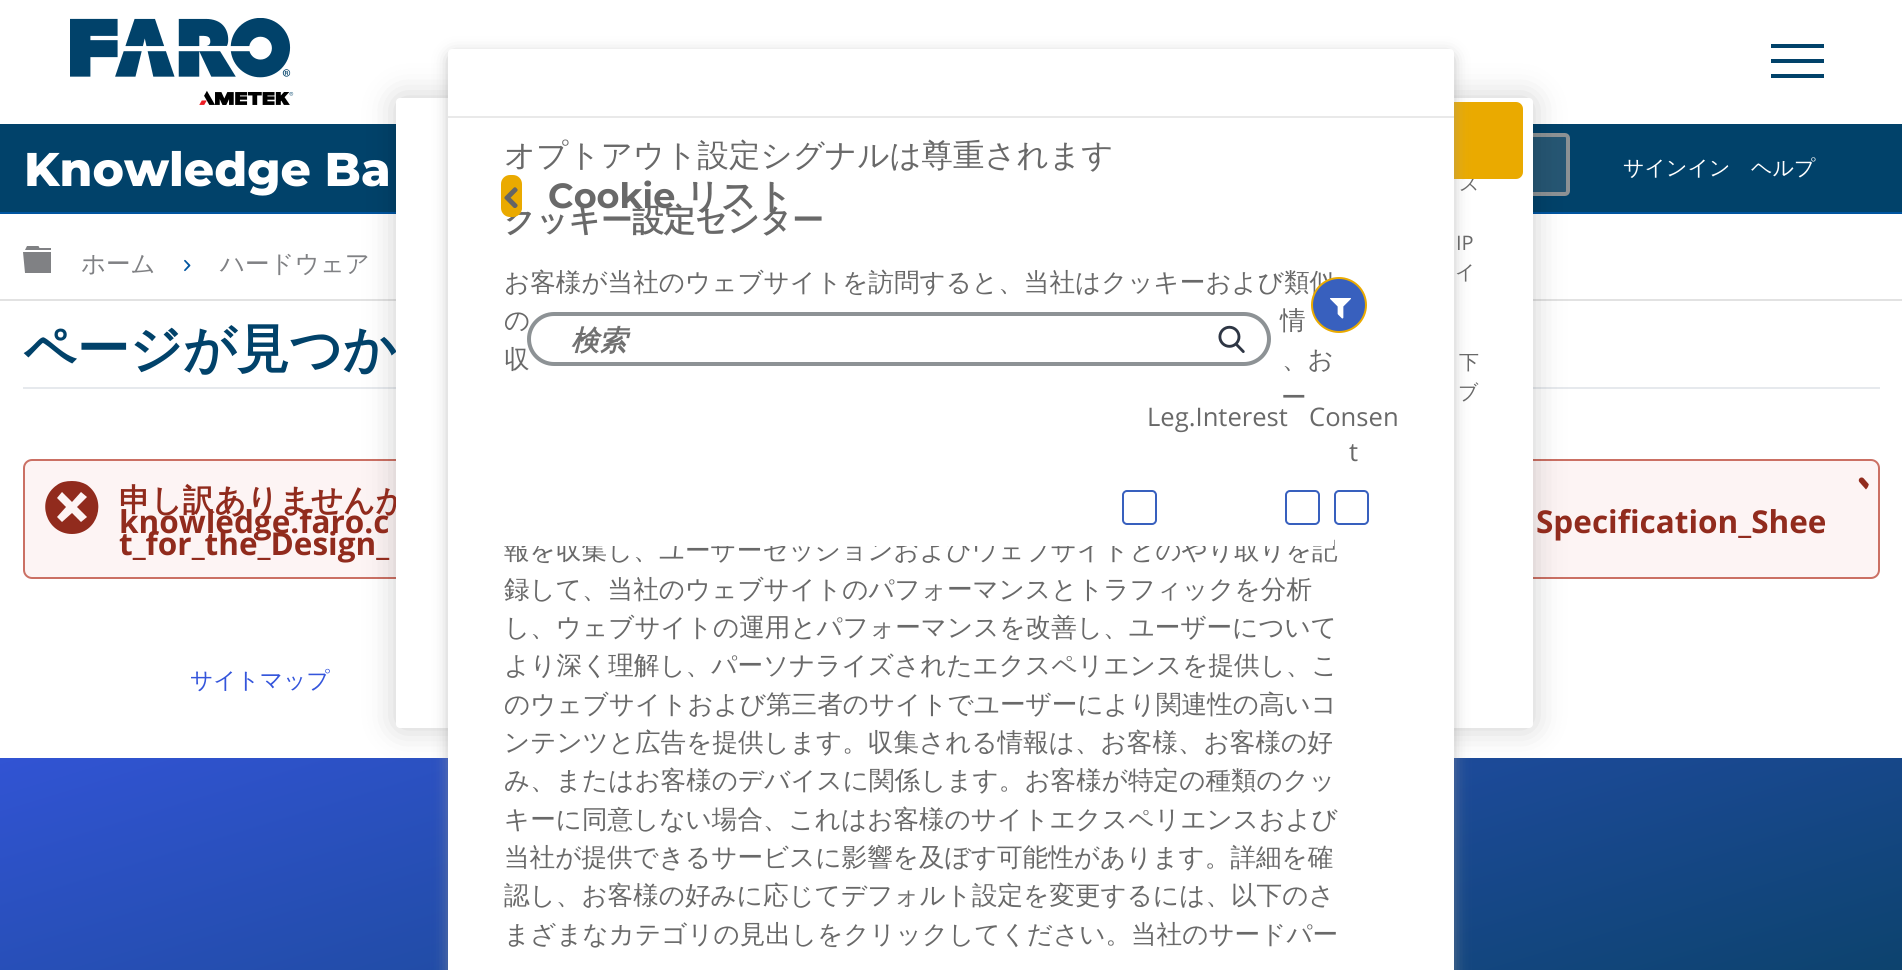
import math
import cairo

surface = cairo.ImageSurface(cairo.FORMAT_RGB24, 1902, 970)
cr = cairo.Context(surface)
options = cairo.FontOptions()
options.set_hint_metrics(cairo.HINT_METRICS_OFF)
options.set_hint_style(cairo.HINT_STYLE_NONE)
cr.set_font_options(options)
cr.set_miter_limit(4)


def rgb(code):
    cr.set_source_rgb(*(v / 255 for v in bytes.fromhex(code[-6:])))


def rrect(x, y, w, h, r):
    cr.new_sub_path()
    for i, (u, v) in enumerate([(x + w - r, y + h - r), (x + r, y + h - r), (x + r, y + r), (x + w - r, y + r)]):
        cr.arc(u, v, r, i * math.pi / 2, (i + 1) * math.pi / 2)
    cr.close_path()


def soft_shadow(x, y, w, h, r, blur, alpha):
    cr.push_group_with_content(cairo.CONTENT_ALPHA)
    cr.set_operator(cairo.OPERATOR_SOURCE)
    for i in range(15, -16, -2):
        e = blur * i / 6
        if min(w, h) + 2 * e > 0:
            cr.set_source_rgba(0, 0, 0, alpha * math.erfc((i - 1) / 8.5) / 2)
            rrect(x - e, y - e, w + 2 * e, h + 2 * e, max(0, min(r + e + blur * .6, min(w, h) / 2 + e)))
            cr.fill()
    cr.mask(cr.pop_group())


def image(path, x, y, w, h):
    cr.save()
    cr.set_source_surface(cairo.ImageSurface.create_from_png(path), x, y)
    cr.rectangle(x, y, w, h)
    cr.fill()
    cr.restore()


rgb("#ffffff")
cr.paint()
rgb("#01426a")
cr.rectangle(0, 124, 1902, 88)
cr.fill()
rgb("#265673")
rrect(1187, 135, 381, 59, 3)
cr.fill_preserve()
rgb("#8d9295")
cr.set_line_width(4)
cr.stroke()
for x, y, w, h, color in [
    (0, 212, 1902, 2, "#0055a0"),
    (0, 299, 1902, 2, "#e2e2e2"),
    (23, 387, 1857, 2, "#e6e9ed"),
]:
    rgb(color)
    cr.rectangle(x, y, w, h)
    cr.fill()
rgb("#fdf4f4")
rrect(24, 460, 1855, 118, 8)
cr.fill_preserve()
rgb("#cb7064")
cr.set_line_width(2)
cr.stroke()
gradient = cairo.LinearGradient(768, 463, 1118, 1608)
gradient.add_color_stop_rgba(0, 0.204, 0.333, 0.859, 1)
gradient.add_color_stop_rgba(0.71, 0.043, 0.259, 0.412, 1)
cr.set_source(gradient)
cr.rectangle(0, 758, 1902, 212)
cr.fill()
rgb("#000000")
soft_shadow(396, 98, 1137, 630, 4, 16, 0.2)
image("img/4.png", 70, 18, 224, 87)
rgb("#01426a")
cr.new_path()
cr.move_to(1771, 59)
cr.line_to(1824, 59)
cr.line_to(1824, 63)
cr.line_to(1771, 63)
cr.close_path()
cr.move_to(1771, 44)
cr.line_to(1824, 44)
cr.line_to(1824, 48)
cr.line_to(1771, 48)
cr.close_path()
cr.move_to(1771, 74)
cr.line_to(1824, 74)
cr.line_to(1824, 78)
cr.line_to(1771, 78)
cr.close_path()
cr.fill()
rgb("#808184")
cr.set_fill_rule(cairo.FILL_RULE_EVEN_ODD)
cr.new_path()
cr.move_to(23, 252)
cr.line_to(51, 252)
cr.line_to(51, 273)
cr.line_to(25, 273)
cr.close_path()
cr.move_to(51, 248)
cr.line_to(51, 250)
cr.line_to(25, 250)
cr.line_to(27, 246)
cr.line_to(38.5, 246)
cr.line_to(39.5, 248)
cr.close_path()
cr.fill()
image("img/5.png", 184, 259, 7, 13)
rgb("#912b1d")
cr.set_fill_rule(cairo.FILL_RULE_WINDING)
cr.new_path()
cr.move_to(72, 481)
cr.curve_to(66, 481, 61, 482, 57, 485)
cr.curve_to(35, 500, 46, 534, 72, 534)
cr.curve_to(98, 534, 108, 500, 87, 485)
cr.curve_to(82, 482, 77, 481, 72, 481)
cr.close_path()
cr.move_to(77, 507)
cr.line_to(87, 517)
cr.line_to(81, 522)
cr.line_to(72, 513)
cr.line_to(62, 522)
cr.line_to(57, 517)
cr.line_to(66, 507)
cr.line_to(57, 498)
cr.line_to(62, 492)
cr.line_to(72, 502)
cr.line_to(81, 492)
cr.line_to(87, 497)
cr.close_path()
cr.fill()
image("img/6.png", 1858, 477, 11, 13)
cr.select_font_face("Montserrat ExtraBold")
cr.set_font_size(47.25)
rgb("#ffffff")
cr.move_to(24, 186)
cr.show_text("Knowledge Ba")
cr.select_font_face("WenQuanYi Zen Hei Medium")
cr.set_font_size(21)
cr.move_to(1623, 175)
cr.show_text("サインイン")
cr.move_to(1751, 175)
cr.show_text("ヘルプ")
cr.set_font_size(24.5)
rgb("#808184")
cr.move_to(81, 272)
cr.show_text("ホーム")
cr.move_to(220, 272)
cr.show_text("ハードウェア")
cr.select_font_face("WenQuanYi Zen Hei", cairo.FONT_SLANT_NORMAL, cairo.FONT_WEIGHT_BOLD)
cr.set_font_size(52.5)
rgb("#01426a")
cr.move_to(23, 367)
cr.show_text("ページが見つか")
cr.set_font_size(31.5)
rgb("#912b1d")
cr.move_to(119, 511)
cr.show_text("申し訳ありませんが")
rgb("#ffffff")
rrect(396, 98, 1137, 630, 4)
cr.fill()
cr.select_font_face("WenQuanYi Zen Hei Medium")
cr.set_font_size(20)
rgb("#696969")
cr.move_to(1459, 190)
cr.show_text("ス")
rgb("#eaaa00")
rrect(1446, 102, 77, 77, 7)
cr.fill()
rgb("#999999")
soft_shadow(453, 58, 996, 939, 0, 9, 1)
rgb("#ffffff")
rrect(448, 49, 1006, 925, 4)
cr.fill()
rrect(1123, 491, 33, 33, 4)
rgb("#3860be")
cr.stroke()
rrect(1286, 491, 33, 33, 4)
cr.stroke()
rrect(1335, 491, 33, 33, 4)
cr.stroke()
cr.select_font_face("Open Sans")
cr.set_font_size(25.6)
rgb("#696969")
for x, y, s in [
    (1147, 426, "Leg.Interest"),
    (1349, 461, "t"),
    (1309, 426, "Consen"),
]:
    cr.move_to(x, y)
    cr.show_text(s)
cr.select_font_face("WenQuanYi Zen Hei Medium")
cr.move_to(504, 559)
cr.show_text("報を収集し、ユーザーセッションおよびウェブサイトとのやり取りを記")
rgb("#ffffff")
cr.rectangle(504, 537, 830, 9)
cr.fill()
rgb("#696969")
cr.move_to(504, 291)
cr.show_text("お客様が当社のウェブサイトを訪問すると、当社はクッキーおよび類似")
rgb("#3860be")
cr.new_path()
cr.arc(1339, 305, 27, 0, 2 * math.pi)
cr.fill_preserve()
rgb("#eaaa00")
cr.stroke()
image("img/2.png", 1330, 298, 21, 21)
rgb("#696969")
cr.move_to(504, 368)
cr.show_text("収")
cr.move_to(504, 329)
cr.show_text("の")
rrect(529, 314, 740, 50, 25)
rgb("#8d9295")
cr.set_line_width(4)
cr.stroke()
image("img/3.png", 1218, 325, 27, 28)
cr.select_font_face("WenQuanYi Zen Hei", cairo.FONT_SLANT_ITALIC, cairo.FONT_WEIGHT_BOLD)
cr.set_font_size(28)
rgb("#707070")
cr.move_to(571, 350)
cr.show_text("検索")
cr.select_font_face("WenQuanYi Zen Hei", cairo.FONT_SLANT_NORMAL, cairo.FONT_WEIGHT_BOLD)
cr.set_font_size(31.5)
rgb("#696969")
cr.move_to(504, 231)
cr.show_text("クッキー設定センター")
rgb("#eaaa00")
rrect(501, 175, 21, 42, 9)
cr.fill()
image("img/1.png", 504, 187, 14, 21)
cr.set_font_size(35)
rgb("#696969")
cr.move_to(685, 208)
cr.show_text("リスト")
cr.select_font_face("Montserrat", cairo.FONT_SLANT_NORMAL, cairo.FONT_WEIGHT_BOLD)
cr.move_to(548, 208)
cr.show_text("Cookie")
cr.select_font_face("WenQuanYi Zen Hei Medium")
cr.set_font_size(25.6)
for x, y, s in [
    (504, 943, "まざまなカテゴリの見出しをクリックしてください。当社のサードパー"),
    (504, 904, "認し、お客様の好みに応じてデフォルト設定を変更するには、以下のさ"),
    (504, 866, "当社が提供できるサービスに影響を及ぼす可能性があります。詳細を確"),
    (504, 828, "キーに同意しない場合、これはお客様のサイトエクスペリエンスおよび"),
    (504, 789, "み、またはお客様のデバイスに関係します。お客様が特定の種類のクッ"),
    (504, 751, "ンテンツと広告を提供します。収集される情報は、お客様、お客様の好"),
    (504, 713, "のウェブサイトおよび第三者のサイトでユーザーにより関連性の高いコ"),
    (504, 674, "より深く理解し、パーソナライズされたエクスペリエンスを提供し、こ"),
    (504, 636, "し、ウェブサイトの運用とパフォーマンスを改善し、ユーザーについて"),
    (504, 598, "録して、当社のウェブサイトのパフォーマンスとトラフィックを分析"),
    (1281, 406, "ー"),
    (1282, 368, "、お"),
    (1280, 329, "情"),
]:
    cr.move_to(x, y)
    cr.show_text(s)
cr.set_font_size(31.5)
cr.move_to(504, 166)
cr.show_text("オプトアウト設定シグナルは尊重されます")
rgb("#e9e9e9")
cr.rectangle(448, 116, 1006, 2)
cr.fill()
cr.set_font_size(20)
rgb("#696969")
for x, y, s in [
    (1458, 399, "ブ"),
    (1459, 369, "下"),
    (1455, 279, "イ"),
]:
    cr.move_to(x, y)
    cr.show_text(s)
cr.select_font_face("Open Sans")
cr.move_to(1456, 250)
cr.show_text("IP")
cr.select_font_face("Open Sans", cairo.FONT_SLANT_NORMAL, cairo.FONT_WEIGHT_BOLD)
cr.set_font_size(31.5)
rgb("#912b1d")
for x, y, s in [
    (119, 533, "knowledge.faro.c"),
    (1536, 533, "Specification_Shee"),
    (119, 555, "t_for_the_Design_"),
]:
    cr.move_to(x, y)
    cr.show_text(s)
cr.select_font_face("WenQuanYi Zen Hei Medium")
cr.set_font_size(22.75)
rgb("#3455db")
cr.move_to(190, 688)
cr.show_text("サイトマップ")
surface.write_to_png("page.png")
